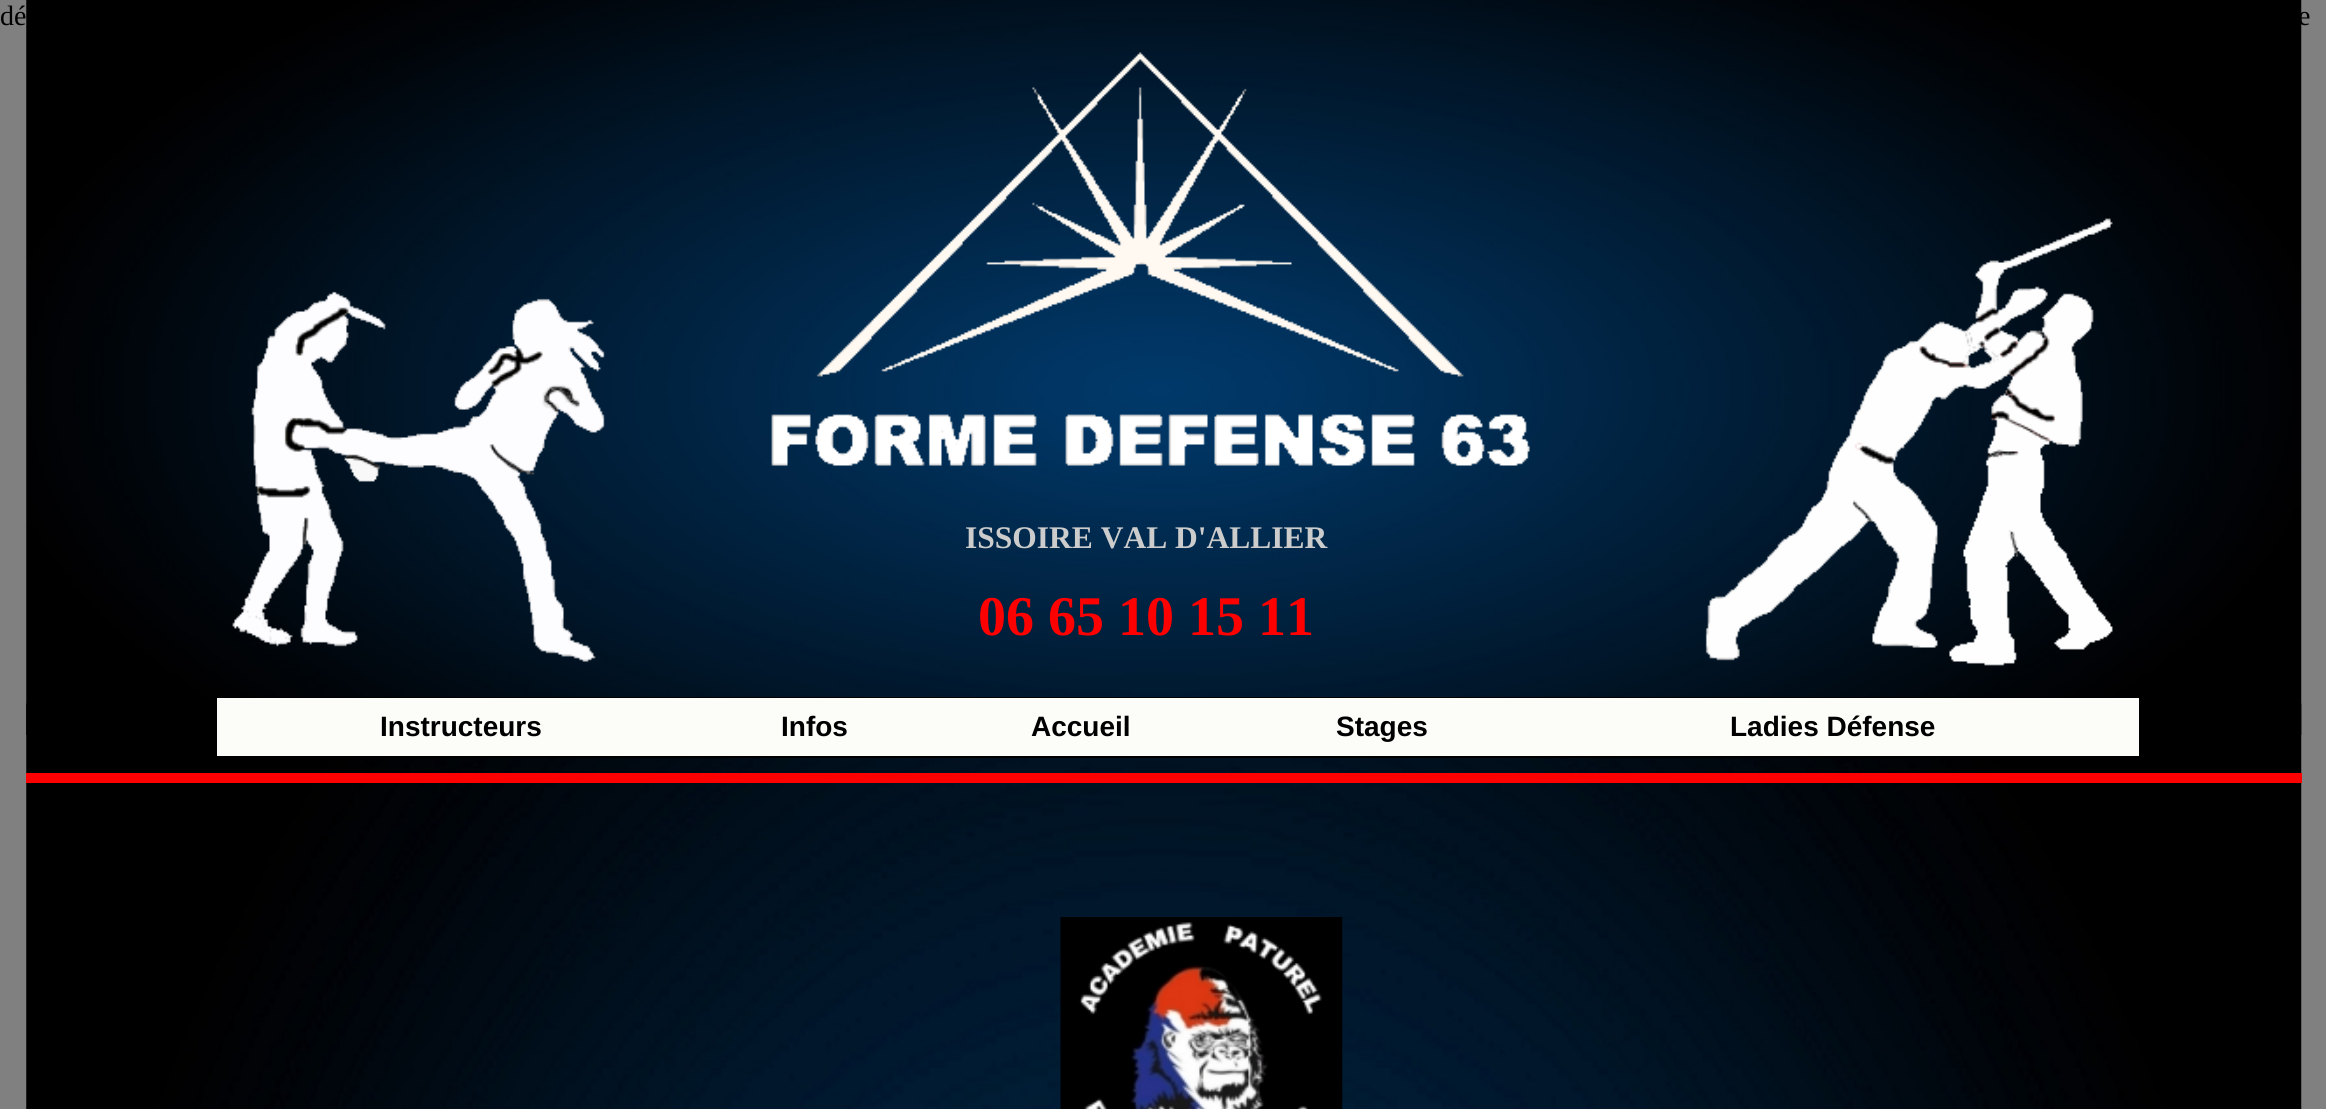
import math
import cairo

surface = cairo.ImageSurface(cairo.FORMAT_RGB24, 2326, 1109)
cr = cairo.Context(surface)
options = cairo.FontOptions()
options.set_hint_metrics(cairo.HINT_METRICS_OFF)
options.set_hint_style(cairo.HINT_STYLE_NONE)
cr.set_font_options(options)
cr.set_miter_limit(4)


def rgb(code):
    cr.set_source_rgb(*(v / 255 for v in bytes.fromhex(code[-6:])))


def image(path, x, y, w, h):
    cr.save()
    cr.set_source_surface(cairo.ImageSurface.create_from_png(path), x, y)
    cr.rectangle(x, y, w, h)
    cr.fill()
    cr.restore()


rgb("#808080")
cr.paint()
image("img/6.png", 26, 703, 2276, 406)
rgb("#fe0000")
cr.rectangle(26, 773, 2276, 10)
cr.fill()
image("img/7.png", 1060, 917, 283, 192)
cr.select_font_face("Liberation Serif")
cr.set_font_size(28)
rgb("#000000")
cr.move_to(0, 25)
cr.show_text("dé")
cr.move_to(2298, 25)
cr.show_text("e")
image("img/1.png", 26, 0, 2276, 735)
image("img/2.png", 232, 291, 373, 371)
image("img/3.png", 816, 52, 648, 325)
image("img/4.png", 1705, 218, 408, 448)
image("img/5.png", 771, 414, 759, 52)
cr.select_font_face("Liberation Serif", cairo.FONT_SLANT_NORMAL, cairo.FONT_WEIGHT_BOLD)
cr.set_font_size(31.5)
rgb("#cccccc")
cr.move_to(965, 548)
cr.show_text("ISSOIRE VAL D'ALLIER")
cr.set_font_size(56)
rgb("#ff0000")
cr.move_to(978, 635)
cr.show_text("06 65 10 15 11")
cr.rectangle(216, 698, 1923, 59)
rgb("#000000")
cr.stroke()
rgb("#fcfcf9")
cr.rectangle(217, 698, 1922, 58)
cr.fill()
cr.select_font_face("Liberation Sans", cairo.FONT_SLANT_NORMAL, cairo.FONT_WEIGHT_BOLD)
cr.set_font_size(28)
rgb("#000000")
for x, y, s in [
    (380, 736, "Instructeurs"),
    (781, 736, "Infos"),
    (1031, 736, "Accueil"),
    (1336, 736, "Stages"),
    (1730, 736, "Ladies Défense"),
]:
    cr.move_to(x, y)
    cr.show_text(s)
surface.write_to_png("page.png")
